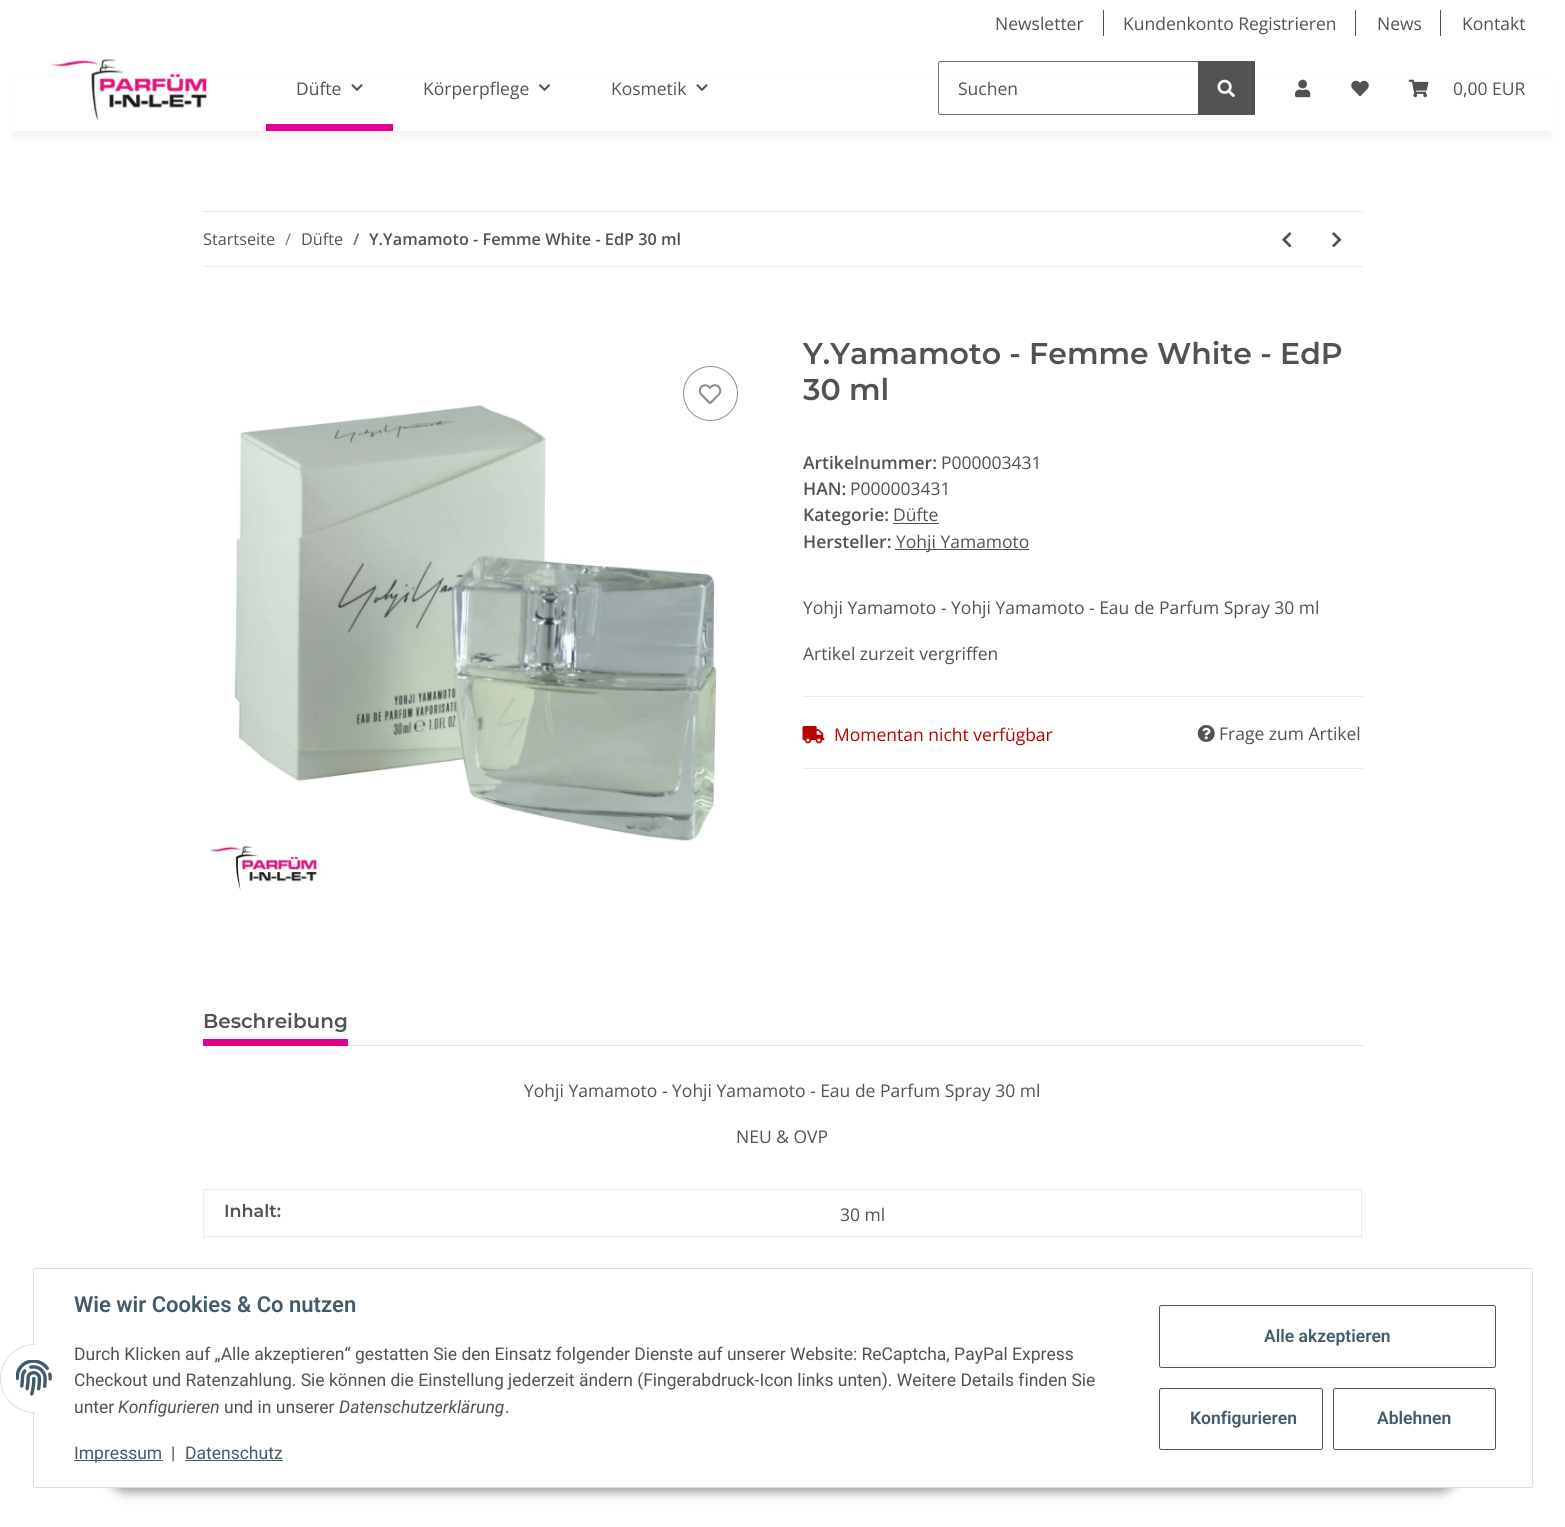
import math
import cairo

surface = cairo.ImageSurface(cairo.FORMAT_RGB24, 1565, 1527)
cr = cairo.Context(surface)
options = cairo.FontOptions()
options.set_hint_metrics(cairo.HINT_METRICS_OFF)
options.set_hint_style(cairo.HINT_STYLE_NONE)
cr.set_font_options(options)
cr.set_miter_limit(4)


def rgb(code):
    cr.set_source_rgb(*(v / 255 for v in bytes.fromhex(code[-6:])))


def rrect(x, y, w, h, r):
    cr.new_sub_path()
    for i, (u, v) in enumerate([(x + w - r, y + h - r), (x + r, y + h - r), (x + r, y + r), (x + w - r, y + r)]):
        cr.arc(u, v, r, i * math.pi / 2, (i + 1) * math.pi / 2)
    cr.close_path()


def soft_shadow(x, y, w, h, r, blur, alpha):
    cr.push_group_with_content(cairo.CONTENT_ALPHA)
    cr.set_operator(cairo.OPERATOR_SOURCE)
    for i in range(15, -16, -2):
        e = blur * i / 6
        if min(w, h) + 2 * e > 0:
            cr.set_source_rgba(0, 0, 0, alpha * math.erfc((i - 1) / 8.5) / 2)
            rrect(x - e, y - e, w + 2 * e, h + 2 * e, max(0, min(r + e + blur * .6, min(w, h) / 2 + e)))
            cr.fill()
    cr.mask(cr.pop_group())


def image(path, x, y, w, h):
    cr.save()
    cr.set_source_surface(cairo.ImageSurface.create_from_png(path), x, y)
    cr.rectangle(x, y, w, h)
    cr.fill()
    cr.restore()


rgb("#ffffff")
cr.paint()
for x, y, w, h, color in [
    (1103, 10, 1, 26, "#525252"),
    (1355, 10, 1, 26, "#525252"),
    (1440, 10, 1, 26, "#525252"),
]:
    rgb(color)
    cr.rectangle(x, y, w, h)
    cr.fill()
rgb("#000000")
soft_shadow(15, 81, 1535, 55, 0, 5.5, 0.06)
rgb("#ffffff")
cr.rectangle(10, 76, 1545, 55)
cr.fill()
image("img/1.png", 50, 59, 157, 61)
image("img/2.png", 351, 84, 12, 7)
rgb("#e2008c")
cr.rectangle(266, 124, 127, 7)
cr.fill()
image("img/3.png", 538, 84, 12, 7)
image("img/2.png", 696, 84, 12, 7)
rrect(938.5, 61.5, 260, 53, 2)
rgb("#707070")
cr.set_line_width(1)
cr.stroke()
rgb("#525252")
cr.rectangle(1198, 61, 57, 54)
cr.fill()
image("img/4.png", 1217, 79, 18, 19)
image("img/5.png", 1295, 79, 16, 19)
image("img/6.png", 1351, 80, 18, 16)
image("img/7.png", 1408, 79, 21, 19)
rgb("#ebebeb")
cr.rectangle(203, 211, 1160, 1)
cr.fill()
cr.rectangle(203, 266, 1160, 1)
cr.fill()
image("img/8.png", 1282, 232, 10, 16)
image("img/9.png", 1332, 232, 10, 16)
image("img/11.png", 210, 405, 508, 486)
cr.arc(710.5, 393.5, 27, 0, 2 * math.pi)
rgb("#8d8d8d")
cr.stroke()
image("img/10.png", 698, 384, 24, 20)
for x, y, w, h, color in [
    (893, 523, 46, 1, "#525252"),
    (895, 549, 134, 1, "#525252"),
    (803, 696, 560, 1, "#ebebeb"),
    (803, 768, 560, 1, "#ebebeb"),
]:
    rgb(color)
    cr.rectangle(x, y, w, h)
    cr.fill()
image("img/12.png", 802, 725, 23, 19)
image("img/13.png", 1197, 725, 18, 17)
for x, y, w, h, color in [
    (348, 1045, 1015, 1, "#dee2e6"),
    (203, 1039, 145, 7, "#e2008c"),
    (203, 1189, 1160, 1, "#ebebeb"),
    (1361, 1189, 1, 49, "#ebebeb"),
    (203, 1236, 1160, 1, "#ebebeb"),
    (203, 1189, 1, 49, "#ebebeb"),
]:
    rgb(color)
    cr.rectangle(x, y, w, h)
    cr.fill()
rgb("#000000")
soft_shadow(109, 1451, 1347, 40, 20, 6, 0.45)
rgb("#ffffff")
rrect(33.5, 1268.5, 1499, 219, 2)
cr.fill_preserve()
rgb("#dddddd")
cr.stroke()
rgb("#ffffff")
cr.arc(34.5, 1378.5, 34, 0, 2 * math.pi)
cr.fill_preserve()
rgb("#dddddd")
cr.stroke()
rgb("#ffffff")
cr.rectangle(35, 1344, 34, 69)
cr.fill()
image("img/14.png", 16, 1360, 36, 36)
rgb("#435a6b")
cr.rectangle(74, 1460, 89, 1)
cr.fill()
cr.rectangle(185, 1460, 98, 1)
cr.fill()
rrect(1159.5, 1305.5, 336, 62, 2)
cr.stroke()
rrect(1159.5, 1388.5, 163, 61, 2)
cr.stroke()
rrect(1333.5, 1388.5, 162, 61, 2)
cr.stroke()
cr.select_font_face("Open Sans")
cr.set_font_size(17.5)
rgb("#525252")
for x, y, s in [
    (995, 30, "Newsletter"),
    (1123, 30, "Kundenkonto Registrieren"),
    (1377, 30, "News"),
    (1462, 30, "Kontakt"),
    (296, 95, "Düfte"),
    (423, 95, "Körperpflege"),
    (611, 95, "Kosmetik"),
    (958, 95, "Suchen"),
    (1453, 95, "0,00 EUR"),
]:
    cr.move_to(x, y)
    cr.show_text(s)
cr.set_font_size(16.25)
cr.move_to(203, 245)
cr.show_text("Startseite")
rgb("#707070")
cr.move_to(285, 245)
cr.show_text("/")
rgb("#525252")
cr.move_to(301, 245)
cr.show_text("Düfte")
cr.select_font_face("Open Sans SemiBold")
rgb("#707070")
cr.move_to(353, 245)
cr.show_text("/")
rgb("#525252")
cr.move_to(369, 245)
cr.show_text("Y.Yamamoto - Femme White - EdP 30 ml")
cr.select_font_face("Montserrat SemiBold")
cr.set_font_size(30)
cr.move_to(803, 364)
cr.show_text("Y.Yamamoto - Femme White - EdP")
cr.move_to(803, 400)
cr.show_text("30 ml")
cr.select_font_face("Open Sans SemiBold")
cr.set_font_size(17.5)
cr.move_to(803, 469)
cr.show_text("Artikelnummer:")
cr.select_font_face("Open Sans")
cr.move_to(941, 469)
cr.show_text("P000003431")
cr.select_font_face("Open Sans SemiBold")
cr.move_to(803, 495)
cr.show_text("HAN:")
cr.select_font_face("Open Sans")
cr.move_to(850, 495)
cr.show_text("P000003431")
cr.select_font_face("Open Sans SemiBold")
cr.move_to(803, 521)
cr.show_text("Kategorie:")
cr.select_font_face("Open Sans")
cr.move_to(893, 521)
cr.show_text("Düfte")
cr.select_font_face("Open Sans SemiBold")
cr.move_to(803, 548)
cr.show_text("Hersteller:")
cr.select_font_face("Open Sans")
for x, y, s in [
    (896, 548, "Yohji Yamamoto"),
    (803, 614, "Yohji Yamamoto - Yohji Yamamoto - Eau de Parfum Spray 30 ml"),
    (803, 660, "Artikel zurzeit vergriffen"),
]:
    cr.move_to(x, y)
    cr.show_text(s)
rgb("#b90000")
cr.move_to(834, 741)
cr.show_text("Momentan nicht verfügbar")
rgb("#525252")
cr.move_to(1219, 740)
cr.show_text("Frage zum Artikel")
cr.select_font_face("Montserrat SemiBold")
cr.set_font_size(20)
cr.move_to(203, 1028)
cr.show_text("Beschreibung")
cr.select_font_face("Open Sans")
cr.set_font_size(17.5)
cr.move_to(524, 1097)
cr.show_text("Yohji Yamamoto - Yohji Yamamoto - Eau de Parfum Spray 30 ml")
cr.move_to(736, 1143)
cr.show_text("NEU & OVP")
cr.select_font_face("Montserrat SemiBold")
cr.move_to(224, 1217)
cr.show_text("Inhalt:")
cr.select_font_face("Open Sans")
cr.move_to(840, 1221)
cr.show_text("30 ml")
cr.select_font_face("Roboto SemiBold")
cr.set_font_size(22)
rgb("#435a6b")
cr.move_to(74, 1312)
cr.show_text("Wie wir Cookies & Co nutzen")
cr.select_font_face("Roboto")
cr.set_font_size(17.5)
rgb("#525252")
for x, y, s in [
    (74, 1360, "Durch Klicken auf „Alle akzeptieren“ gestatten Sie den Einsatz folgender Dienste auf unserer Website: ReCaptcha, PayPal Express"),
    (74, 1386, "Checkout und Ratenzahlung. Sie können die Einstellung jederzeit ändern (Fingerabdruck-Icon links unten). Weitere Details finden Sie"),
    (74, 1413, "unter"),
]:
    cr.move_to(x, y)
    cr.show_text(s)
cr.select_font_face("Roboto", cairo.FONT_SLANT_ITALIC)
cr.move_to(118, 1413)
cr.show_text("Konfigurieren")
cr.select_font_face("Roboto")
cr.move_to(224, 1413)
cr.show_text("und in unserer")
cr.select_font_face("Roboto", cairo.FONT_SLANT_ITALIC)
cr.move_to(339, 1413)
cr.show_text("Datenschutzerklärung")
cr.select_font_face("Roboto")
cr.move_to(505, 1413)
cr.show_text(".")
rgb("#435a6b")
cr.move_to(74, 1459)
cr.show_text("Impressum")
rgb("#525252")
cr.move_to(171, 1459)
cr.show_text("|")
rgb("#435a6b")
cr.move_to(185, 1459)
cr.show_text("Datenschutz")
cr.select_font_face("Roboto SemiBold")
for x, y, s in [
    (1264, 1342, "Alle akzeptieren"),
    (1190, 1424, "Konfigurieren"),
    (1377, 1424, "Ablehnen"),
]:
    cr.move_to(x, y)
    cr.show_text(s)
surface.write_to_png("page.png")
